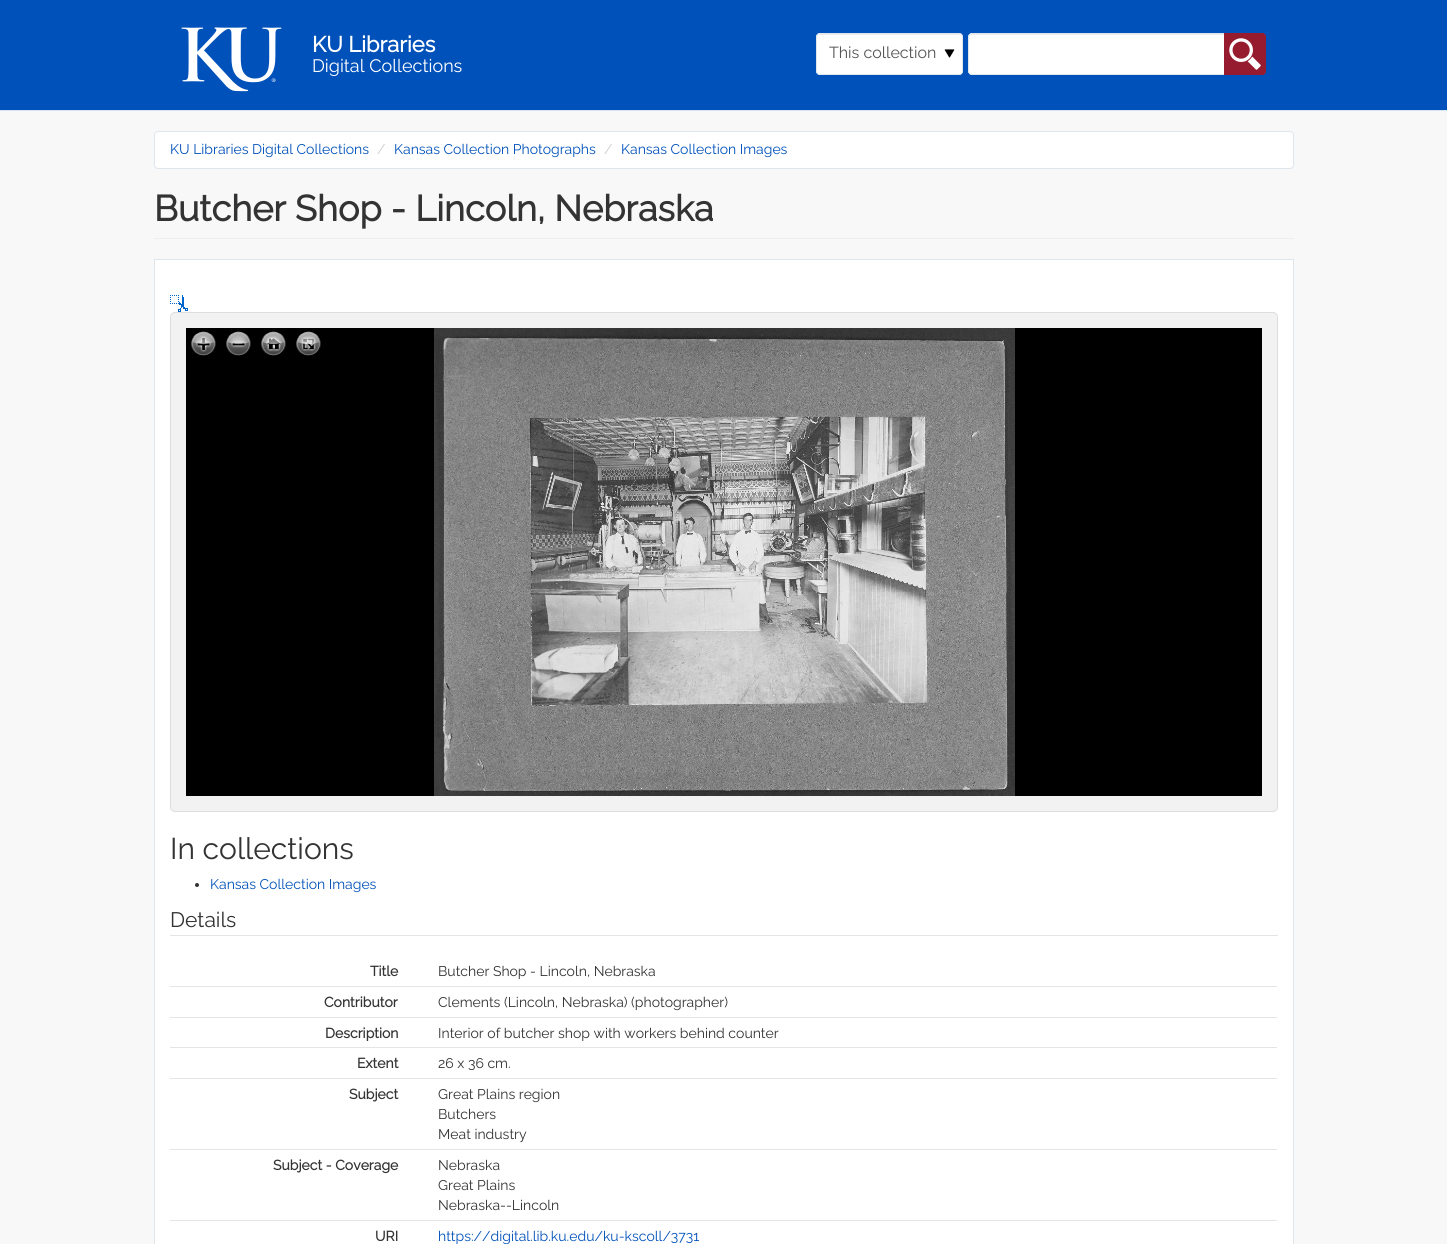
import math
import cairo

surface = cairo.ImageSurface(cairo.FORMAT_RGB24, 1447, 1244)
cr = cairo.Context(surface)
options = cairo.FontOptions()
options.set_hint_metrics(cairo.HINT_METRICS_OFF)
options.set_hint_style(cairo.HINT_STYLE_NONE)
cr.set_font_options(options)
cr.set_miter_limit(4)


def rgb(code):
    cr.set_source_rgb(*(v / 255 for v in bytes.fromhex(code[-6:])))


def rrect(x, y, w, h, r):
    cr.new_sub_path()
    for i, (u, v) in enumerate([(x + w - r, y + h - r), (x + r, y + h - r), (x + r, y + r), (x + w - r, y + r)]):
        cr.arc(u, v, r, i * math.pi / 2, (i + 1) * math.pi / 2)
    cr.close_path()


def image(path, x, y, w, h):
    cr.save()
    cr.set_source_surface(cairo.ImageSurface.create_from_png(path), x, y)
    cr.rectangle(x, y, w, h)
    cr.fill()
    cr.restore()


rgb("#f8f8f8")
cr.paint()
rgb("#0051ba")
cr.rectangle(0, 0, 1447, 110)
cr.fill()
rgb("#d7e3f6")
cr.rectangle(0, 110, 1447, 1)
cr.fill()
image("img/1.png", 181, 27, 101, 65)
rgb("#ffffff")
rrect(816, 33, 147, 42, 4)
cr.fill()
image("img/2.png", 944, 49, 11, 9)
rgb("#ececec")
cr.new_path()
cr.move_to(820, 35)
cr.line_to(959, 35)
cr.curve_to(961, 35, 962, 36, 962, 38)
cr.line_to(962, 37)
cr.curve_to(962, 35, 961, 34, 959, 34)
cr.line_to(820, 34)
cr.curve_to(818, 34, 817, 35, 817, 37)
cr.line_to(817, 38)
cr.curve_to(817, 36, 818, 35, 820, 35)
cr.close_path()
cr.fill()
rrect(816.5, 33.5, 146, 41, 3.5)
rgb("#dde5ed")
cr.set_line_width(1)
cr.stroke()
rgb("#ffffff")
cr.new_path()
cr.move_to(972, 33)
cr.line_to(1224, 33)
cr.line_to(1224, 75)
cr.line_to(972, 75)
cr.curve_to(970, 75, 968, 73, 968, 71)
cr.line_to(968, 37)
cr.curve_to(968, 35, 970, 33, 972, 33)
cr.close_path()
cr.fill()
rgb("#ececec")
cr.new_path()
cr.move_to(972, 35)
cr.line_to(1224, 35)
cr.line_to(1224, 34)
cr.line_to(972, 34)
cr.curve_to(970, 34, 969, 35, 969, 37)
cr.line_to(969, 38)
cr.curve_to(969, 36, 970, 35, 972, 35)
cr.close_path()
cr.fill()
rgb("#dde5ed")
cr.set_fill_rule(cairo.FILL_RULE_EVEN_ODD)
cr.new_path()
cr.move_to(972, 33)
cr.line_to(1224, 33)
cr.line_to(1224, 75)
cr.line_to(972, 75)
cr.curve_to(970, 75, 968, 73, 968, 71)
cr.line_to(968, 37)
cr.curve_to(968, 35, 970, 33, 972, 33)
cr.close_path()
cr.move_to(972, 34)
cr.line_to(1224, 34)
cr.line_to(1224, 74)
cr.line_to(972, 74)
cr.curve_to(970, 74, 969, 73, 969, 71)
cr.line_to(969, 37)
cr.curve_to(969, 35, 970, 34, 972, 34)
cr.close_path()
cr.fill()
rgb("#971b2f")
cr.new_path()
cr.move_to(1224, 33)
cr.line_to(1262, 33)
cr.curve_to(1264, 33, 1266, 35, 1266, 37)
cr.line_to(1266, 71)
cr.curve_to(1266, 73, 1264, 75, 1262, 75)
cr.line_to(1224, 75)
cr.close_path()
cr.fill()
image("img/3.png", 1229, 38, 32, 32)
cr.new_path()
cr.move_to(1224.5, 33.5)
cr.line_to(1262, 33.5)
cr.curve_to(1264, 33.5, 1265.5, 35, 1265.5, 37)
cr.line_to(1265.5, 71)
cr.curve_to(1265.5, 73, 1264, 74.5, 1262, 74.5)
cr.line_to(1224.5, 74.5)
cr.close_path()
cr.stroke()
rgb("#ffffff")
rrect(154.5, 131.5, 1139, 37, 3.5)
cr.fill_preserve()
rgb("#dde5ed")
cr.stroke()
rgb("#eeeeee")
cr.rectangle(154, 238, 1140, 1)
cr.fill()
rgb("#ffffff")
cr.rectangle(154.5, 259.5, 1139, 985)
cr.fill_preserve()
rgb("#dde5ed")
cr.stroke()
image("img/4.png", 170, 295, 18, 17)
rgb("#f2f2f2")
rrect(170.5, 312.5, 1107, 499, 4.5)
cr.fill_preserve()
rgb("#dddddd")
cr.stroke()
rgb("#000000")
cr.rectangle(186, 328, 1076, 468)
cr.fill()
image("img/5.png", 434, 328, 581, 468)
image("img/6.png", 191, 331, 25, 25)
image("img/7.png", 191, 331, 25, 24)
image("img/8.png", 226, 331, 25, 25)
image("img/9.png", 226, 331, 25, 24)
image("img/10.png", 261, 331, 25, 25)
image("img/11.png", 261, 331, 25, 24)
image("img/12.png", 296, 331, 25, 25)
image("img/13.png", 296, 331, 25, 24)
rgb("#333333")
cr.arc(197, 885, 2, 0, 2 * math.pi)
cr.fill()
for x, y, w, h, color in [
    (170, 935, 1108, 1, "#e5e5e5"),
    (170, 986, 1107, 1, "#e5e5e5"),
    (170, 1017, 1107, 1, "#e5e5e5"),
    (170, 1047, 1107, 1, "#e5e5e5"),
    (170, 1078, 1107, 1, "#e5e5e5"),
    (170, 1149, 1107, 1, "#e5e5e5"),
    (170, 1220, 1107, 1, "#e5e5e5"),
]:
    rgb(color)
    cr.rectangle(x, y, w, h)
    cr.fill()
cr.select_font_face("Raleway", cairo.FONT_SLANT_NORMAL, cairo.FONT_WEIGHT_BOLD)
cr.set_font_size(22)
rgb("#ffffff")
cr.move_to(312, 52)
cr.show_text("KU Libraries")
cr.select_font_face("Raleway Thin")
cr.set_font_size(18)
cr.move_to(312, 72)
cr.show_text("Digital Collections")
cr.set_font_size(16)
rgb("#555555")
cr.move_to(829, 58)
cr.show_text("This collection")
cr.set_font_size(14)
rgb("#0051ba")
cr.move_to(170, 154)
cr.show_text("KU Libraries Digital Collections")
rgb("#cccccc")
cr.move_to(377, 154)
cr.show_text("/")
rgb("#0051ba")
cr.move_to(394, 154)
cr.show_text("Kansas Collection Photographs")
rgb("#cccccc")
cr.move_to(604, 154)
cr.show_text("/")
rgb("#0051ba")
cr.move_to(621, 154)
cr.show_text("Kansas Collection Images")
cr.select_font_face("Raleway", cairo.FONT_SLANT_NORMAL, cairo.FONT_WEIGHT_BOLD)
cr.set_font_size(36)
rgb("#333333")
cr.move_to(154, 221)
cr.show_text("Butcher Shop - Lincoln, Nebraska")
cr.select_font_face("Raleway Thin")
cr.set_font_size(30)
cr.move_to(170, 859)
cr.show_text("In collections")
cr.set_font_size(14)
rgb("#0051ba")
cr.move_to(210, 889)
cr.show_text("Kansas Collection Images")
cr.set_font_size(21)
rgb("#333333")
cr.move_to(170, 927)
cr.show_text("Details")
cr.select_font_face("Raleway", cairo.FONT_SLANT_NORMAL, cairo.FONT_WEIGHT_BOLD)
cr.set_font_size(14)
cr.move_to(370, 976)
cr.show_text("Title")
cr.select_font_face("Raleway Thin")
cr.move_to(438, 976)
cr.show_text("Butcher Shop - Lincoln, Nebraska")
cr.select_font_face("Raleway", cairo.FONT_SLANT_NORMAL, cairo.FONT_WEIGHT_BOLD)
cr.move_to(324, 1007)
cr.show_text("Contributor")
cr.select_font_face("Raleway Thin")
cr.move_to(438, 1007)
cr.show_text("Clements (Lincoln, Nebraska) (photographer)")
cr.select_font_face("Raleway", cairo.FONT_SLANT_NORMAL, cairo.FONT_WEIGHT_BOLD)
cr.move_to(325, 1038)
cr.show_text("Description")
cr.select_font_face("Raleway Thin")
cr.move_to(438, 1038)
cr.show_text("Interior of butcher shop with workers behind counter")
cr.select_font_face("Raleway", cairo.FONT_SLANT_NORMAL, cairo.FONT_WEIGHT_BOLD)
cr.move_to(357, 1068)
cr.show_text("Extent")
cr.select_font_face("Raleway Thin")
cr.move_to(438, 1068)
cr.show_text("26 x 36 cm.")
cr.select_font_face("Raleway", cairo.FONT_SLANT_NORMAL, cairo.FONT_WEIGHT_BOLD)
cr.move_to(349, 1099)
cr.show_text("Subject")
cr.select_font_face("Raleway Thin")
for x, y, s in [
    (438, 1099, "Great Plains region"),
    (438, 1119, "Butchers"),
    (438, 1139, "Meat industry"),
]:
    cr.move_to(x, y)
    cr.show_text(s)
cr.select_font_face("Raleway", cairo.FONT_SLANT_NORMAL, cairo.FONT_WEIGHT_BOLD)
cr.move_to(273, 1170)
cr.show_text("Subject - Coverage")
cr.select_font_face("Raleway Thin")
for x, y, s in [
    (438, 1170, "Nebraska"),
    (438, 1190, "Great Plains"),
    (438, 1210, "Nebraska--Lincoln"),
]:
    cr.move_to(x, y)
    cr.show_text(s)
cr.select_font_face("Raleway", cairo.FONT_SLANT_NORMAL, cairo.FONT_WEIGHT_BOLD)
cr.move_to(375, 1241)
cr.show_text("URI")
cr.select_font_face("Raleway Thin")
rgb("#0051ba")
cr.move_to(438, 1241)
cr.show_text("https://digital.lib.ku.edu/ku-kscoll/3731")
surface.write_to_png("page.png")
